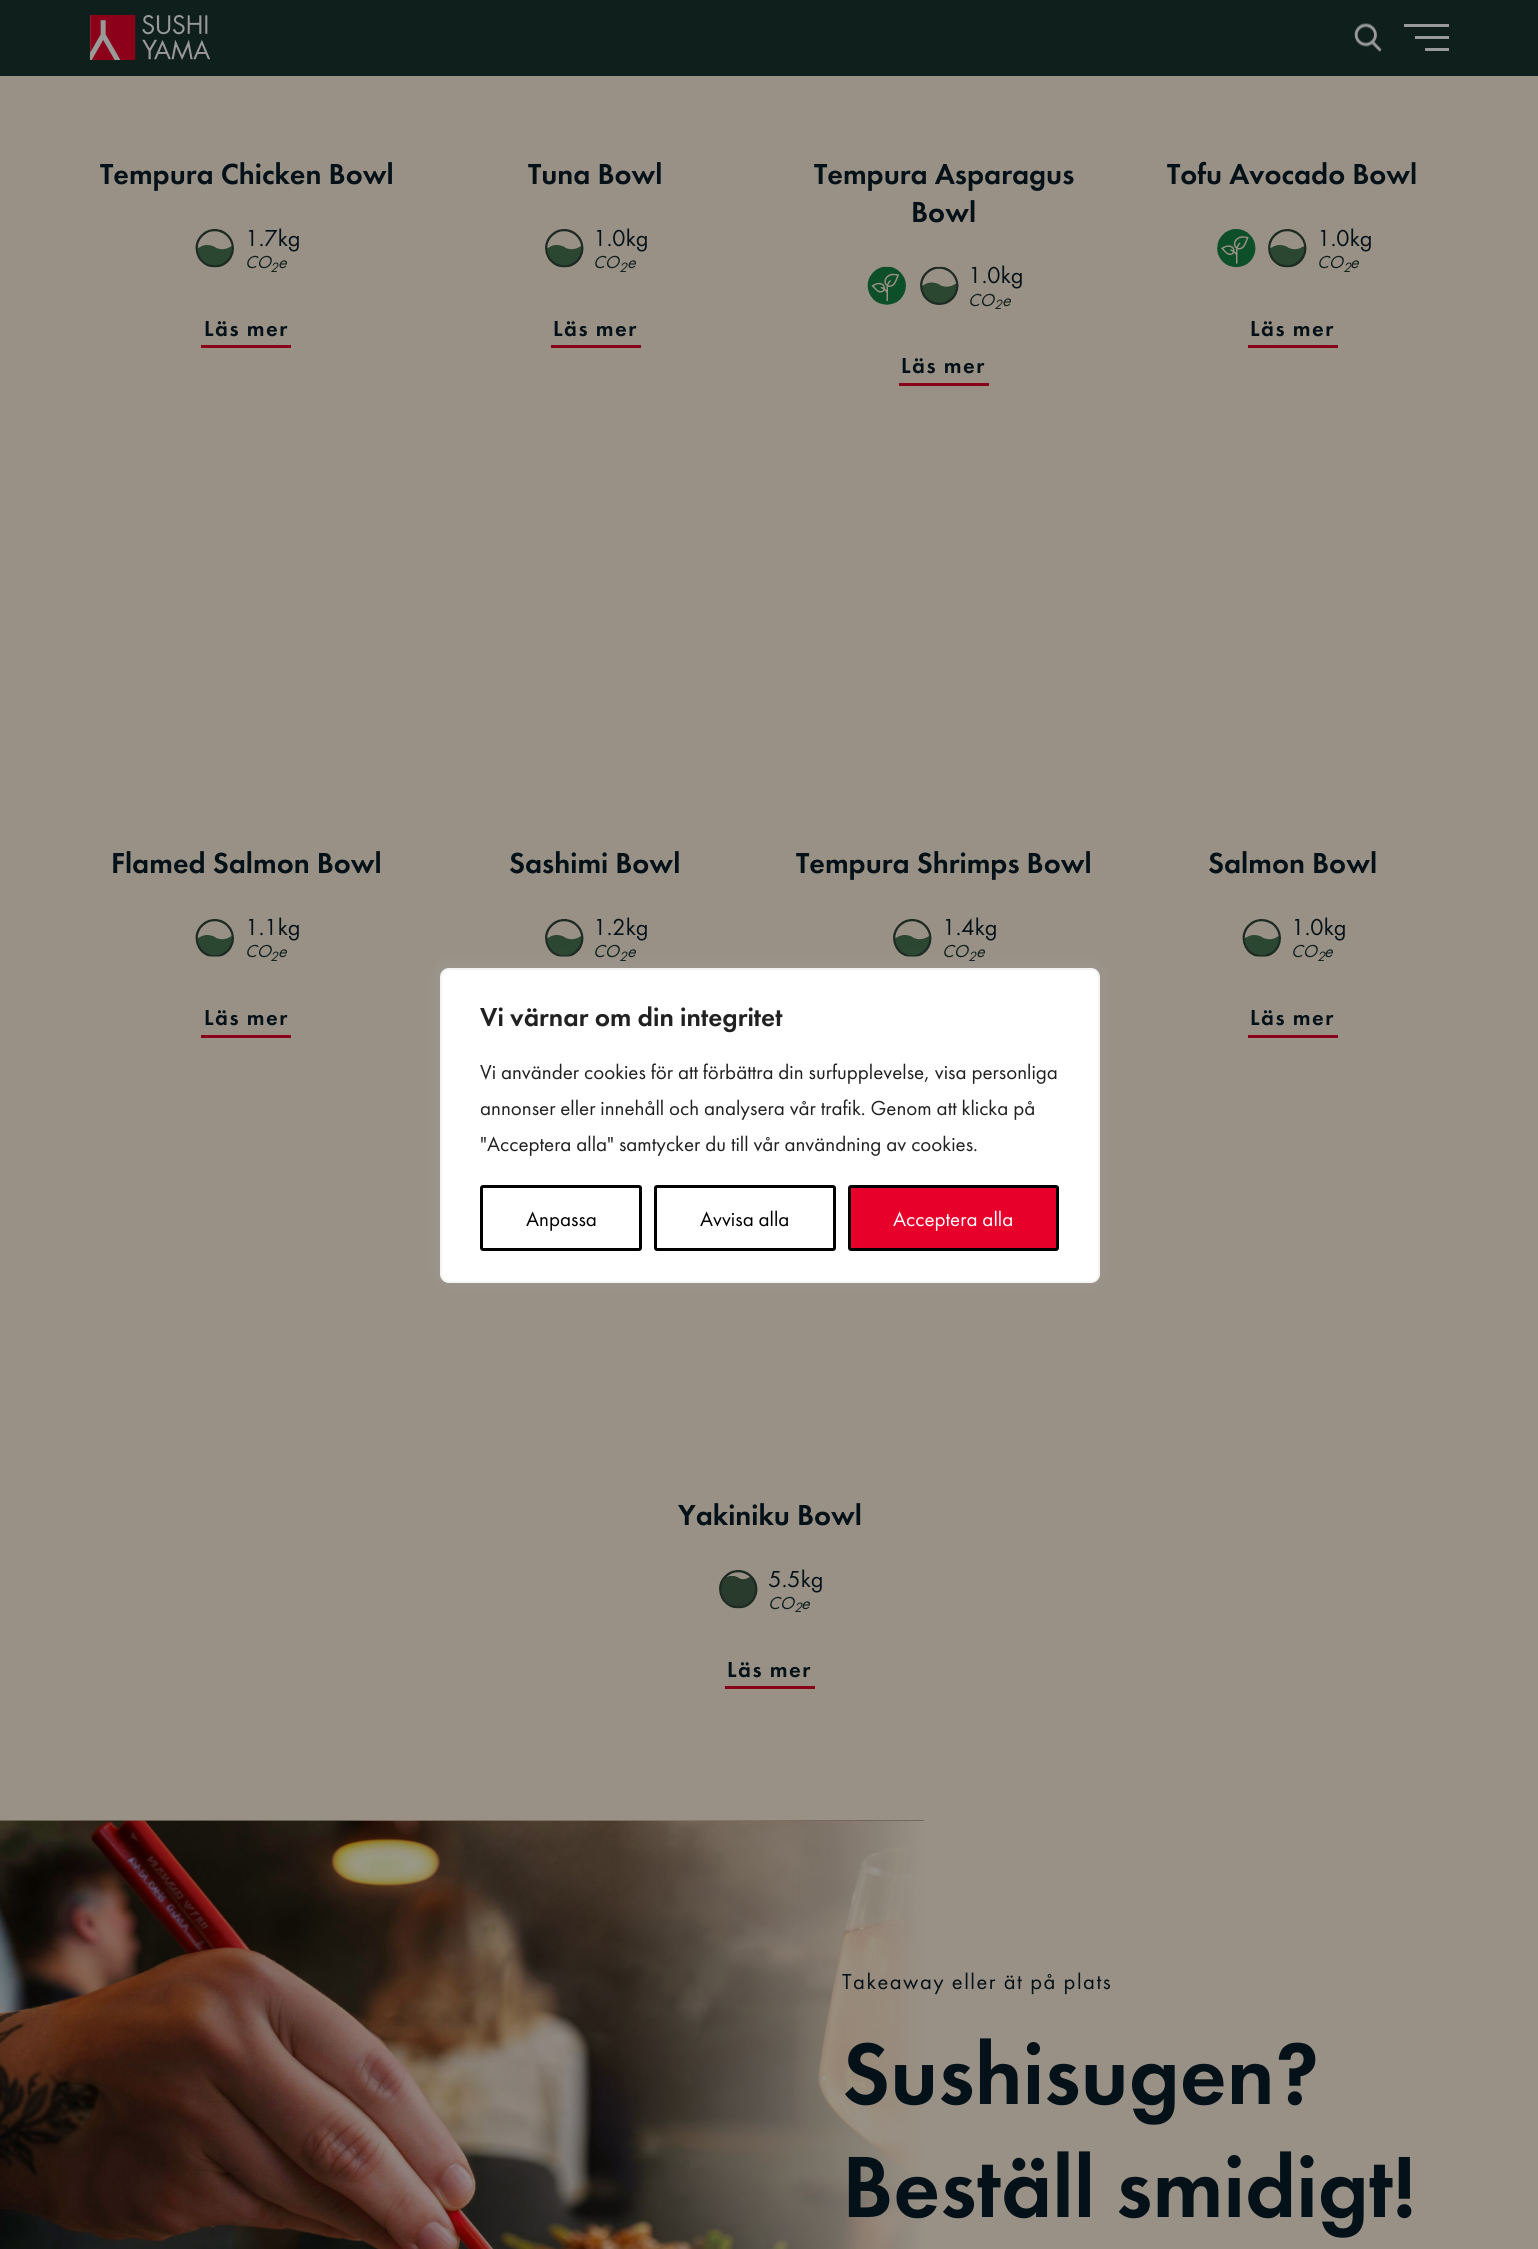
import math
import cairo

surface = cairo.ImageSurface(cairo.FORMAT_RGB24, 1538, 2249)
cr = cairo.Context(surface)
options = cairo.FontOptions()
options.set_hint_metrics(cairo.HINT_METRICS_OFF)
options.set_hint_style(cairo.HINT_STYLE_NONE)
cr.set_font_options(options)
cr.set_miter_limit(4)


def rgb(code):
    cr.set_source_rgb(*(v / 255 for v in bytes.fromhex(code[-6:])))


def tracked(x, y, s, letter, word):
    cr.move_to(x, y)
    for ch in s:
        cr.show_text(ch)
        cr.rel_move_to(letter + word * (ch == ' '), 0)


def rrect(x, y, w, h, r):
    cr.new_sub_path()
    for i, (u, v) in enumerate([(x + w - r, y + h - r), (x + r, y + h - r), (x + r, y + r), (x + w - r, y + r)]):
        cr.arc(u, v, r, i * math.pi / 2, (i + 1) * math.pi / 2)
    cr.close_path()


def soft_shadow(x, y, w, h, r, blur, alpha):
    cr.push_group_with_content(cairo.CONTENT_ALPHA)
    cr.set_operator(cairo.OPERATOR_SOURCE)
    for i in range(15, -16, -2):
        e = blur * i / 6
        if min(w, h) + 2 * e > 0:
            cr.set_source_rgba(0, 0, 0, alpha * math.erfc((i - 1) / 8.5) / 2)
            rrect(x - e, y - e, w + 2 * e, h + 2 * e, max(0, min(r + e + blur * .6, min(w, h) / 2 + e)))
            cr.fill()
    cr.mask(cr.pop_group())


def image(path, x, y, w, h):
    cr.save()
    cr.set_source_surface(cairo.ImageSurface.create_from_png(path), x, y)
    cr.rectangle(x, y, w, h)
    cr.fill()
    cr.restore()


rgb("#999186")
cr.paint()
rgb("#0e1f1c")
cr.rectangle(0, 0, 1538, 76)
cr.fill()
image("img/1.png", 90, 15, 120, 45)
image("img/2.png", 1354, 23, 28, 29)
for x, y, w, h, color in [
    (1404, 24, 45, 3, "#999999"),
    (1415, 36, 34, 3, "#999999"),
    (1425, 48, 24, 3, "#999999"),
]:
    rgb(color)
    cr.rectangle(x, y, w, h)
    cr.fill()
image("img/3.png", 195, 229, 39, 39)
rgb("#8a0019")
cr.rectangle(201, 345, 90, 3)
cr.fill()
image("img/4.png", 545, 229, 39, 39)
cr.rectangle(551, 345, 90, 3)
cr.fill()
image("img/5.png", 867, 266, 39, 39)
image("img/6.png", 920, 266, 39, 39)
cr.rectangle(899, 383, 90, 3)
cr.fill()
image("img/7.png", 1217, 229, 39, 39)
image("img/8.png", 1268, 229, 39, 39)
cr.rectangle(1248, 345, 90, 3)
cr.fill()
image("img/9.png", 195, 919, 39, 38)
cr.rectangle(201, 1035, 90, 3)
cr.fill()
image("img/10.png", 545, 919, 39, 38)
image("img/10.png", 893, 919, 39, 38)
image("img/11.png", 1242, 919, 39, 38)
cr.rectangle(1248, 1035, 90, 3)
cr.fill()
image("img/12.png", 719, 1570, 39, 39)
cr.rectangle(725, 1686, 90, 3)
cr.fill()
image("img/13.png", 0, 1820, 924, 1)
image("img/14.png", 0, 1820, 924, 429)
rgb("#acabab")
soft_shadow(440, 966, 660, 315, 9, 7.5, 0.3)
rgb("#ffffff")
rrect(441, 969, 658, 313, 8)
cr.fill_preserve()
rgb("#f4f4f4")
cr.stroke()
rrect(481.5, 1186.5, 159, 63, 1.5)
rgb("#000000")
cr.set_line_width(3)
cr.stroke()
rrect(655.5, 1186.5, 179, 63, 1.5)
cr.stroke()
rgb("#e6002a")
rrect(849.5, 1186.5, 208, 63, 1.5)
cr.fill_preserve()
rgb("#000000")
cr.stroke()
cr.select_font_face("Futura PT Medium")
cr.set_font_size(30)
rgb("#041118")
cr.move_to(100, 184)
cr.show_text("Tempura Chicken Bowl")
cr.select_font_face("Futura PT")
cr.set_font_size(24)
cr.move_to(245, 246)
cr.show_text("1.7kg")
cr.select_font_face("Futura PT", cairo.FONT_SLANT_ITALIC)
cr.set_font_size(18)
rgb("#0e1f1c")
cr.move_to(245, 268)
cr.show_text("CO")
cr.set_font_size(14)
cr.move_to(270, 272)
cr.show_text("2")
cr.set_font_size(18)
cr.move_to(278, 268)
cr.show_text("e")
cr.select_font_face("Futura PT Medium")
cr.set_font_size(22.5)
rgb("#041118")
tracked(204, 336, "Läs mer", 1.5, 0)
cr.set_font_size(30)
cr.move_to(528, 184)
cr.show_text("Tuna Bowl")
cr.select_font_face("Futura PT")
cr.set_font_size(24)
cr.move_to(593, 246)
cr.show_text("1.0kg")
cr.select_font_face("Futura PT", cairo.FONT_SLANT_ITALIC)
cr.set_font_size(18)
rgb("#0e1f1c")
cr.move_to(593, 268)
cr.show_text("CO")
cr.set_font_size(14)
cr.move_to(619, 272)
cr.show_text("2")
cr.set_font_size(18)
cr.move_to(627, 268)
cr.show_text("e")
cr.select_font_face("Futura PT Medium")
cr.set_font_size(22.5)
rgb("#041118")
tracked(553, 336, "Läs mer", 1.5, 0)
cr.set_font_size(30)
cr.move_to(814, 184)
cr.show_text("Tempura Asparagus")
cr.move_to(911, 222)
cr.show_text("Bowl")
cr.select_font_face("Futura PT")
cr.set_font_size(24)
cr.move_to(968, 283)
cr.show_text("1.0kg")
cr.select_font_face("Futura PT", cairo.FONT_SLANT_ITALIC)
cr.set_font_size(18)
rgb("#0e1f1c")
cr.move_to(968, 306)
cr.show_text("CO")
cr.set_font_size(14)
cr.move_to(994, 309)
cr.show_text("2")
cr.set_font_size(18)
cr.move_to(1002, 306)
cr.show_text("e")
cr.select_font_face("Futura PT Medium")
cr.set_font_size(22.5)
rgb("#041118")
tracked(901, 373, "Läs mer", 1.5, 0)
cr.set_font_size(30)
cr.move_to(1167, 184)
cr.show_text("Tofu Avocado Bowl")
cr.select_font_face("Futura PT")
cr.set_font_size(24)
cr.move_to(1317, 246)
cr.show_text("1.0kg")
cr.select_font_face("Futura PT", cairo.FONT_SLANT_ITALIC)
cr.set_font_size(18)
rgb("#0e1f1c")
cr.move_to(1317, 268)
cr.show_text("CO")
cr.set_font_size(14)
cr.move_to(1343, 272)
cr.show_text("2")
cr.set_font_size(18)
cr.move_to(1350, 268)
cr.show_text("e")
cr.select_font_face("Futura PT Medium")
cr.set_font_size(22.5)
rgb("#041118")
tracked(1250, 336, "Läs mer", 1.5, 0)
cr.set_font_size(30)
cr.move_to(111, 873)
cr.show_text("Flamed Salmon Bowl")
cr.select_font_face("Futura PT")
cr.set_font_size(24)
cr.move_to(245, 935)
cr.show_text("1.1kg")
cr.select_font_face("Futura PT", cairo.FONT_SLANT_ITALIC)
cr.set_font_size(18)
rgb("#0e1f1c")
cr.move_to(245, 957)
cr.show_text("CO")
cr.set_font_size(14)
cr.move_to(270, 961)
cr.show_text("2")
cr.set_font_size(18)
cr.move_to(278, 957)
cr.show_text("e")
cr.select_font_face("Futura PT Medium")
cr.set_font_size(22.5)
rgb("#041118")
tracked(204, 1025, "Läs mer", 1.5, 0)
cr.set_font_size(30)
cr.move_to(509, 873)
cr.show_text("Sashimi Bowl")
cr.select_font_face("Futura PT")
cr.set_font_size(24)
cr.move_to(593, 935)
cr.show_text("1.2kg")
cr.select_font_face("Futura PT", cairo.FONT_SLANT_ITALIC)
cr.set_font_size(18)
rgb("#0e1f1c")
cr.move_to(593, 957)
cr.show_text("CO")
cr.set_font_size(14)
cr.move_to(619, 961)
cr.show_text("2")
cr.set_font_size(18)
cr.move_to(627, 957)
cr.show_text("e")
cr.select_font_face("Futura PT Medium")
cr.set_font_size(30)
rgb("#041118")
cr.move_to(796, 873)
cr.show_text("Tempura Shrimps Bowl")
cr.select_font_face("Futura PT")
cr.set_font_size(24)
cr.move_to(942, 935)
cr.show_text("1.4kg")
cr.select_font_face("Futura PT", cairo.FONT_SLANT_ITALIC)
cr.set_font_size(18)
rgb("#0e1f1c")
cr.move_to(942, 957)
cr.show_text("CO")
cr.set_font_size(14)
cr.move_to(968, 961)
cr.show_text("2")
cr.set_font_size(18)
cr.move_to(976, 957)
cr.show_text("e")
cr.select_font_face("Futura PT Medium")
cr.set_font_size(30)
rgb("#041118")
cr.move_to(1208, 873)
cr.show_text("Salmon Bowl")
cr.select_font_face("Futura PT")
cr.set_font_size(24)
cr.move_to(1291, 935)
cr.show_text("1.0kg")
cr.select_font_face("Futura PT", cairo.FONT_SLANT_ITALIC)
cr.set_font_size(18)
rgb("#0e1f1c")
cr.move_to(1291, 957)
cr.show_text("CO")
cr.set_font_size(14)
cr.move_to(1317, 961)
cr.show_text("2")
cr.set_font_size(18)
cr.move_to(1324, 957)
cr.show_text("e")
cr.select_font_face("Futura PT Medium")
cr.set_font_size(22.5)
rgb("#041118")
tracked(1250, 1025, "Läs mer", 1.5, 0)
cr.set_font_size(30)
cr.move_to(678, 1525)
cr.show_text("Yakiniku Bowl")
cr.select_font_face("Futura PT")
cr.set_font_size(24)
cr.move_to(768, 1587)
cr.show_text("5.5kg")
cr.select_font_face("Futura PT", cairo.FONT_SLANT_ITALIC)
cr.set_font_size(18)
rgb("#0e1f1c")
cr.move_to(768, 1609)
cr.show_text("CO")
cr.set_font_size(14)
cr.move_to(794, 1612)
cr.show_text("2")
cr.set_font_size(18)
cr.move_to(801, 1609)
cr.show_text("e")
cr.select_font_face("Futura PT Medium")
cr.set_font_size(22.5)
rgb("#041118")
tracked(727, 1677, "Läs mer", 1.5, 0)
cr.select_font_face("Futura PT")
tracked(842, 1989, "Takeaway eller ät på plats", 1.5, 0)
cr.select_font_face("Futura PT Medium")
cr.set_font_size(90)
cr.move_to(842, 2104)
cr.show_text("Sushisugen?")
cr.move_to(842, 2217)
cr.show_text("Beställ smidigt!")
cr.set_font_size(27)
rgb("#212121")
cr.move_to(480, 1026)
cr.show_text("Vi värnar om din integritet")
cr.select_font_face("Futura PT")
cr.set_font_size(21)
for x, y, s in [
    (480, 1079, "Vi använder cookies för att förbättra din surfupplevelse, visa personliga"),
    (480, 1115, "annonser eller innehåll och analysera vår trafik. Genom att klicka på"),
    (480, 1151, "\"Acceptera alla\" samtycker du till vår användning av cookies."),
]:
    cr.move_to(x, y)
    cr.show_text(s)
rgb("#000000")
cr.move_to(526, 1226)
cr.show_text("Anpassa")
cr.move_to(700, 1226)
cr.show_text("Avvisa alla")
rgb("#ffffff")
cr.move_to(893, 1226)
cr.show_text("Acceptera alla")
surface.write_to_png("page.png")
